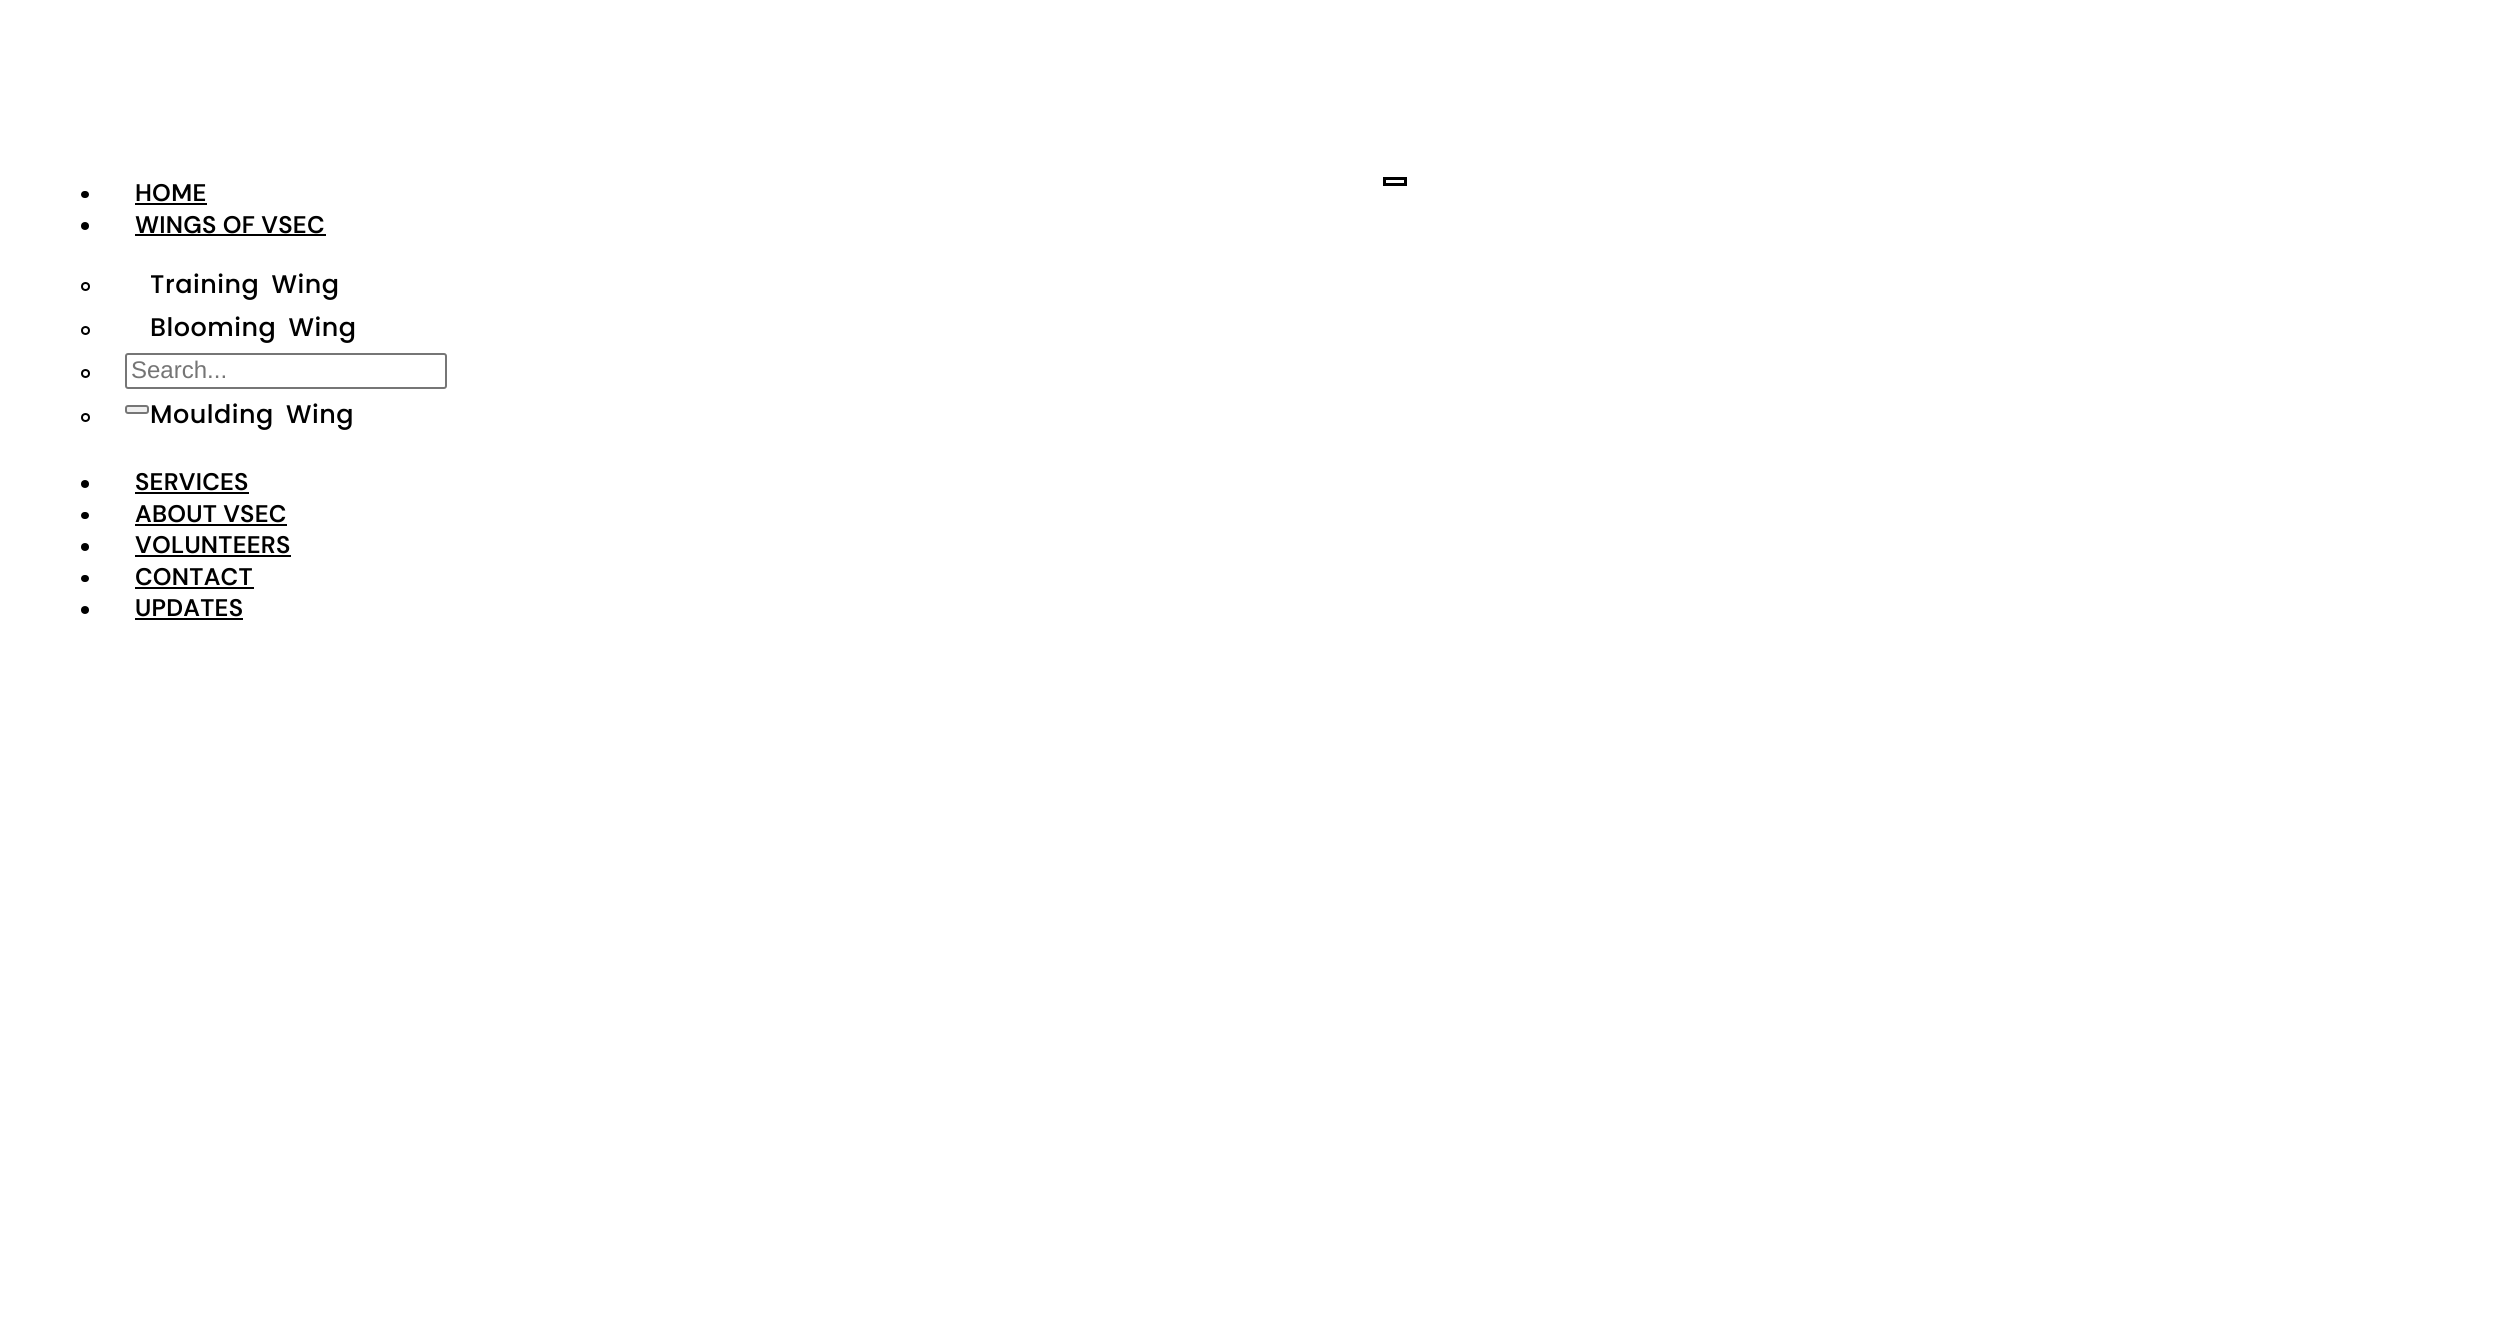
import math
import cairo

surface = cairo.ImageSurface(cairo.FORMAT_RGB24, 2513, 1319)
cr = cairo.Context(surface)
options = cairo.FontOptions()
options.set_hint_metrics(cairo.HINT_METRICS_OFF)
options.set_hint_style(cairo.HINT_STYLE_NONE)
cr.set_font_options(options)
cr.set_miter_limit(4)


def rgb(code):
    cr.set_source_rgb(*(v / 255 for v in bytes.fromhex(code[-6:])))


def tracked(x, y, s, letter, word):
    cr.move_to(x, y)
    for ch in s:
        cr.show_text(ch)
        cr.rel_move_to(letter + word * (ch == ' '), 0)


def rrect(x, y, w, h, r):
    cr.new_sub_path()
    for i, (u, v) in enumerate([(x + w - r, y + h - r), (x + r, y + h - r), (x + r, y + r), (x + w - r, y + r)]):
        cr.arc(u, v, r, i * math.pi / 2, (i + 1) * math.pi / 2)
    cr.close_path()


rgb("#ffffff")
cr.paint()
cr.rectangle(1384.5, 178.5, 21, 6)
rgb("#000000")
cr.set_line_width(3)
cr.stroke()
rrect(81, 191, 8, 7, 3.5)
cr.fill()
cr.rectangle(135, 203, 72, 2)
cr.fill()
cr.arc(85, 226, 4, 0, 2 * math.pi)
cr.fill()
cr.rectangle(135, 234, 191, 2)
cr.fill()
cr.arc(85.5, 286.5, 3.5, 0, 2 * math.pi)
cr.set_line_width(2)
cr.stroke()
cr.arc(85.5, 330.5, 3.5, 0, 2 * math.pi)
cr.stroke()
cr.arc(85.5, 373.5, 3.5, 0, 2 * math.pi)
cr.stroke()
cr.arc(85.5, 417.5, 3.5, 0, 2 * math.pi)
cr.stroke()
cr.arc(85, 484, 4, 0, 2 * math.pi)
cr.fill()
cr.rectangle(135, 492, 114, 2)
cr.fill()
rrect(81, 512, 8, 7, 3.5)
cr.fill()
cr.rectangle(135, 524, 152, 2)
cr.fill()
cr.arc(85, 547, 4, 0, 2 * math.pi)
cr.fill()
cr.rectangle(135, 555, 156, 2)
cr.fill()
rrect(81, 575, 8, 7, 3.5)
cr.fill()
cr.rectangle(135, 587, 119, 2)
cr.fill()
cr.arc(85, 610, 4, 0, 2 * math.pi)
cr.fill()
cr.rectangle(135, 618, 108, 2)
cr.fill()
rrect(126, 354, 320, 34, 2)
rgb("#767676")
cr.stroke()
rgb("#efefef")
rrect(126, 406, 22, 7, 2)
cr.fill_preserve()
rgb("#767676")
cr.stroke()
cr.select_font_face("DM Sans SemiBold")
cr.set_font_size(24)
rgb("#000000")
tracked(135, 201, "HOME", 0.25, 0)
tracked(135, 233, "WINGS OF VSEC", 0.25, 0)
cr.select_font_face("Poppins Medium")
cr.set_font_size(25.5)
for x, y, s in [
    (150, 293, "Training Wing"),
    (150, 336, "Blooming Wing"),
    (150, 423, "Moulding Wing"),
]:
    tracked(x, y, s, 0.5, 5)
cr.select_font_face("DM Sans SemiBold")
cr.set_font_size(24)
for x, y, s in [
    (135, 490, "SERVICES"),
    (135, 522, "ABOUT VSEC"),
    (135, 553, "VOLUNTEERS"),
    (135, 585, "CONTACT"),
    (135, 616, "UPDATES"),
]:
    tracked(x, y, s, 0.25, 0)
cr.select_font_face("Liberation Sans")
rgb("#757575")
cr.move_to(131, 378)
cr.show_text("Search...")
surface.write_to_png("page.png")
